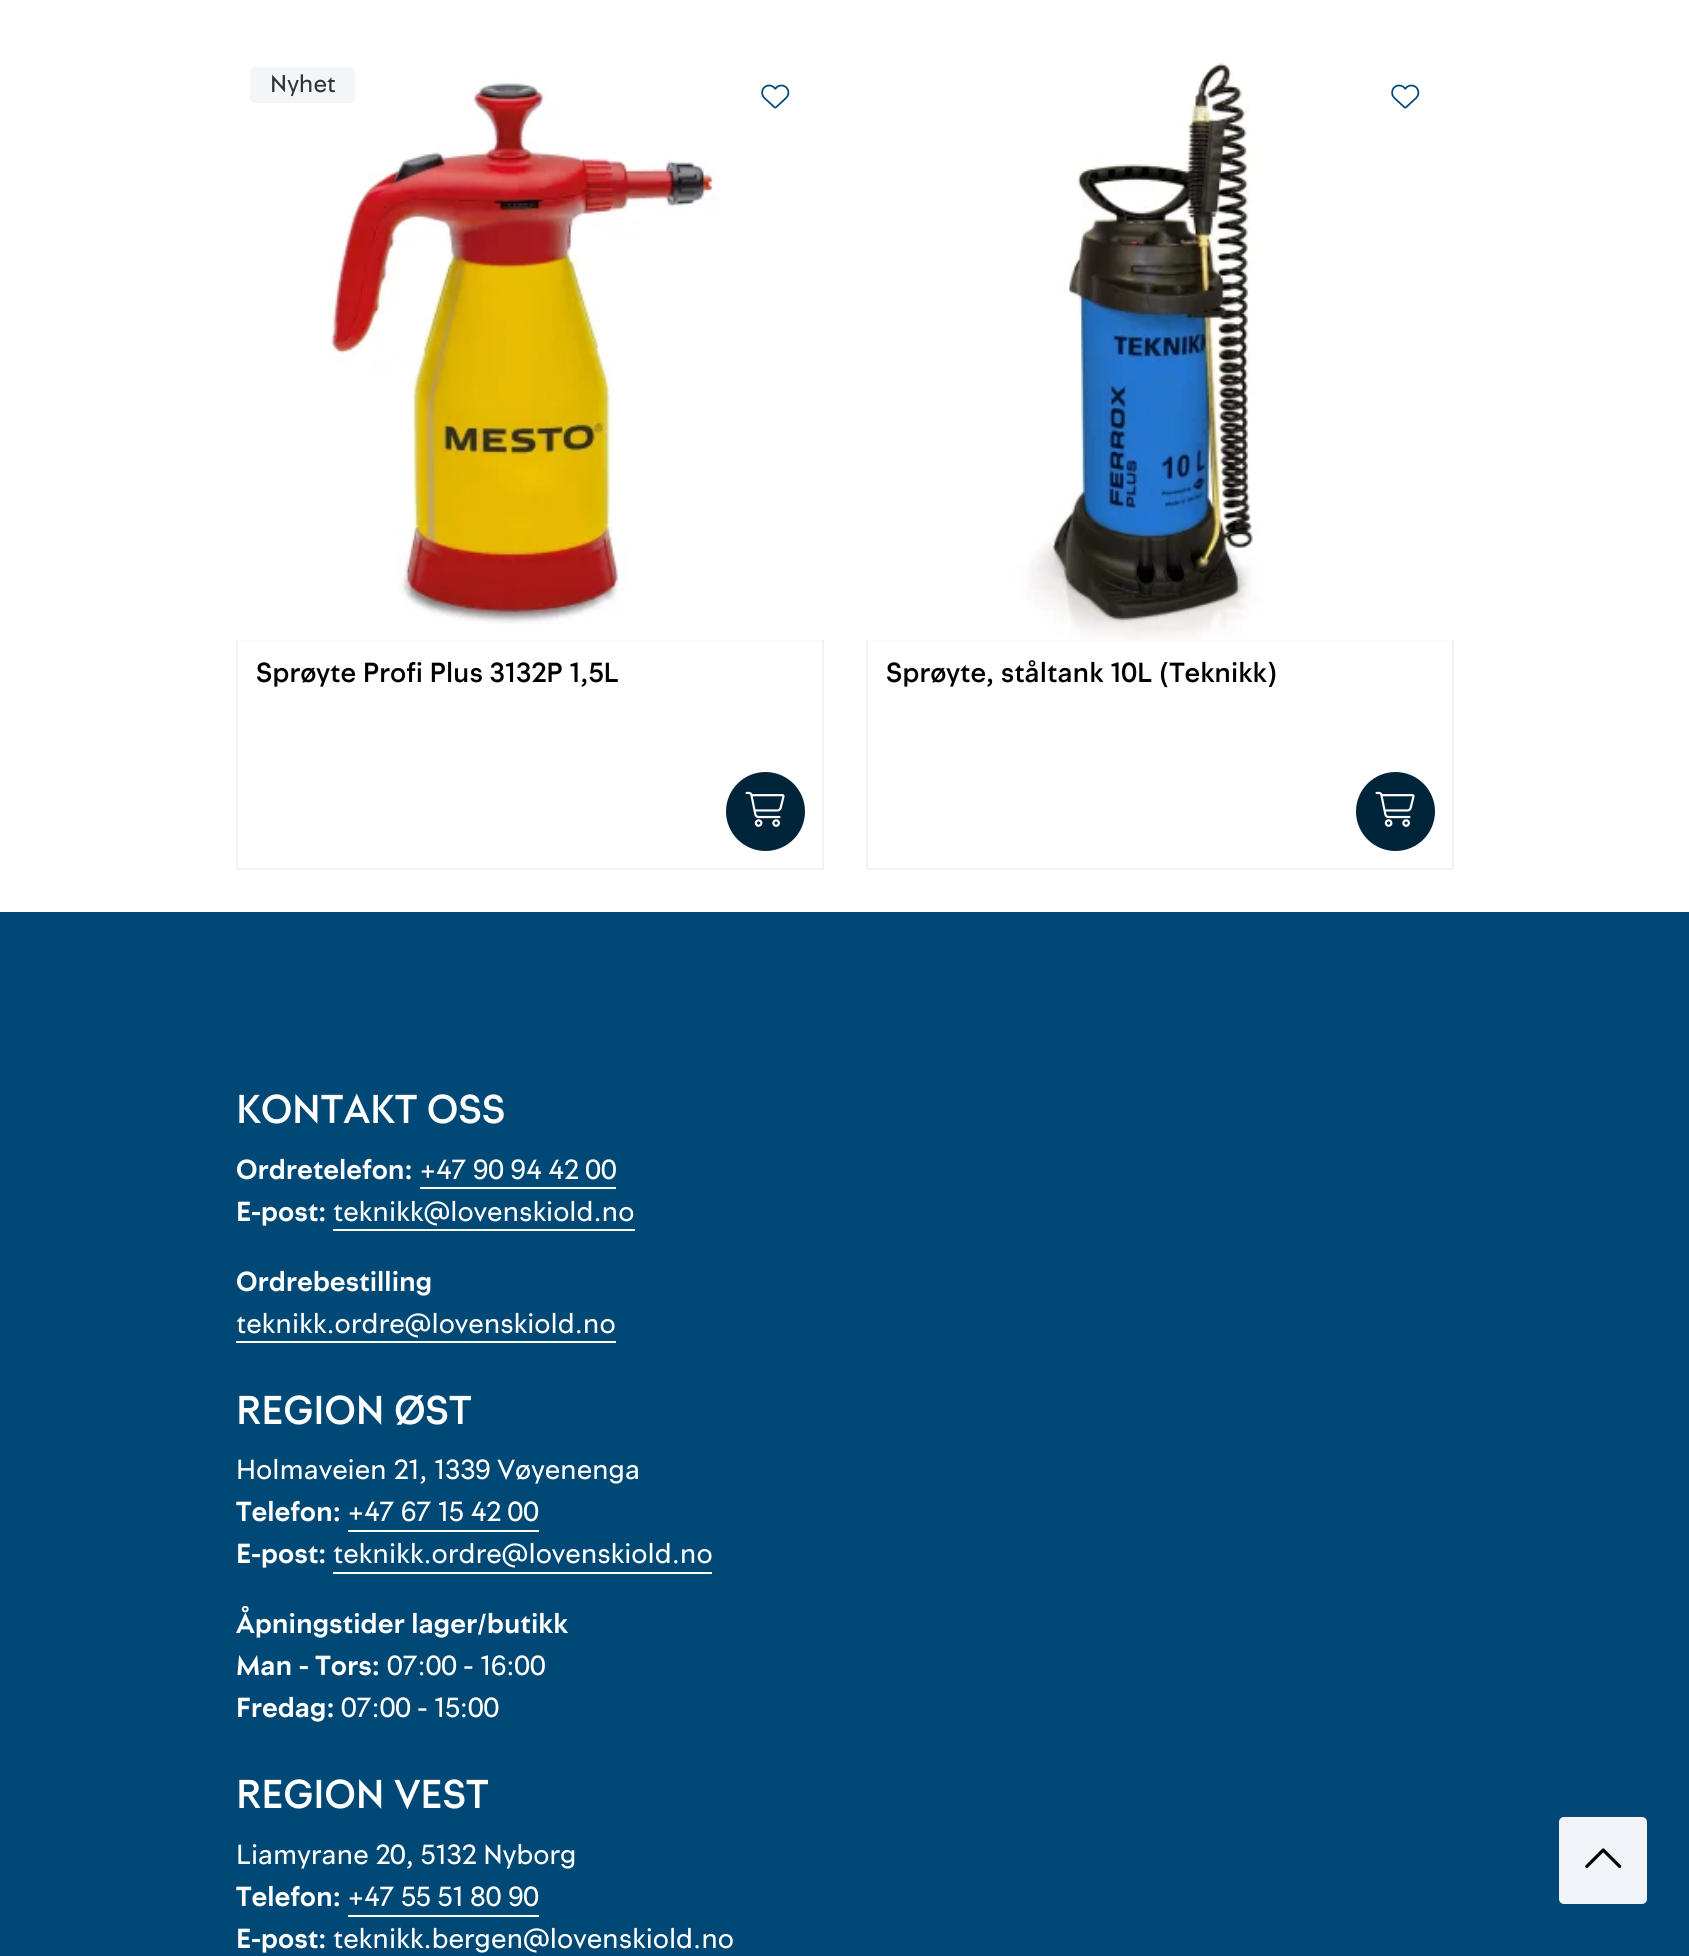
import math
import cairo

surface = cairo.ImageSurface(cairo.FORMAT_RGB24, 1689, 1956)
cr = cairo.Context(surface)
options = cairo.FontOptions()
options.set_hint_metrics(cairo.HINT_METRICS_OFF)
options.set_hint_style(cairo.HINT_STYLE_NONE)
cr.set_font_options(options)
cr.set_miter_limit(4)


def rgb(code):
    cr.set_source_rgb(*(v / 255 for v in bytes.fromhex(code[-6:])))


def rrect(x, y, w, h, r):
    cr.new_sub_path()
    for i, (u, v) in enumerate([(x + w - r, y + h - r), (x + r, y + h - r), (x + r, y + r), (x + w - r, y + r)]):
        cr.arc(u, v, r, i * math.pi / 2, (i + 1) * math.pi / 2)
    cr.close_path()


def image(path, x, y, w, h):
    cr.save()
    cr.set_source_surface(cairo.ImageSurface.create_from_png(path), x, y)
    cr.rectangle(x, y, w, h)
    cr.fill()
    cr.restore()


rgb("#ffffff")
cr.paint()
rgb("#f8f9fa")
rrect(236, 53, 588, 588, 5)
cr.fill()
image("img/1.png", 236, 53, 588, 587)
rgb("#f3f5f9")
rrect(250, 67, 105, 36, 5)
cr.fill()
rgb("#f2f2f2")
cr.new_path()
cr.move_to(824, 640)
cr.line_to(824, 870)
cr.line_to(822, 868)
cr.line_to(822, 640)
cr.close_path()
cr.fill()
cr.set_source_rgba(0, 0, 0, 0.05)
cr.new_path()
cr.move_to(824, 870)
cr.line_to(236, 870)
cr.line_to(238, 868)
cr.line_to(822, 868)
cr.close_path()
cr.fill()
cr.new_path()
cr.move_to(236, 870)
cr.line_to(236, 640)
cr.line_to(238, 640)
cr.line_to(238, 868)
cr.close_path()
cr.fill()
image("img/2.png", 761, 84, 29, 25)
rgb("#00253b")
cr.arc(765.5, 811.5, 38.5, 0, 2 * math.pi)
cr.fill_preserve()
cr.stroke()
image("img/3.png", 745, 791, 40, 36)
rgb("#f8f9fa")
rrect(866, 53, 588, 588, 5)
cr.fill()
image("img/4.png", 866, 53, 588, 587)
rgb("#f2f2f2")
cr.new_path()
cr.move_to(1454, 640)
cr.line_to(1454, 870)
cr.line_to(1452, 868)
cr.line_to(1452, 640)
cr.close_path()
cr.fill()
cr.set_source_rgba(0, 0, 0, 0.05)
cr.new_path()
cr.move_to(1454, 870)
cr.line_to(866, 870)
cr.line_to(868, 868)
cr.line_to(1452, 868)
cr.close_path()
cr.fill()
cr.new_path()
cr.move_to(866, 870)
cr.line_to(866, 640)
cr.line_to(868, 640)
cr.line_to(868, 868)
cr.close_path()
cr.fill()
image("img/2.png", 1391, 84, 29, 25)
rgb("#00253b")
cr.arc(1395.5, 811.5, 38.5, 0, 2 * math.pi)
cr.fill_preserve()
cr.stroke()
image("img/3.png", 1375, 791, 40, 36)
rgb("#004976")
cr.rectangle(0, 912, 1689, 1044)
cr.fill()
rgb("#f0f3f7")
rrect(1559, 1817, 88, 87, 5)
cr.fill()
image("img/5.png", 1585, 1848, 37, 20)
for x, y, w, h, color in [
    (420, 1187, 196, 2, "#ffffff"),
    (333, 1229, 302, 2, "#ffffff"),
    (236, 1341, 380, 2, "#ffffff"),
    (348, 1530, 191, 2, "#ffffff"),
    (333, 1572, 379, 2, "#ffffff"),
    (348, 1915, 191, 2, "#ffffff"),
]:
    rgb(color)
    cr.rectangle(x, y, w, h)
    cr.fill()
cr.select_font_face("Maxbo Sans")
cr.set_font_size(24.5)
rgb("#333333")
cr.move_to(270, 92)
cr.show_text("Nyhet")
cr.select_font_face("Maxbo Sans Medium")
cr.set_font_size(28)
rgb("#000000")
cr.move_to(256, 682)
cr.show_text("Sprøyte Profi Plus 3132P 1,5L")
cr.move_to(886, 682)
cr.show_text("Sprøyte, ståltank 10L (Teknikk)")
cr.set_font_size(40.75)
rgb("#ffffff")
cr.move_to(236, 1123)
cr.show_text("KONTAKT OSS")
cr.select_font_face("Maxbo Sans", cairo.FONT_SLANT_NORMAL, cairo.FONT_WEIGHT_BOLD)
cr.set_font_size(28)
cr.move_to(236, 1179)
cr.show_text("Ordretelefon:")
cr.select_font_face("Maxbo Sans")
cr.move_to(420, 1179)
cr.show_text("+47 90 94 42 00")
cr.select_font_face("Maxbo Sans", cairo.FONT_SLANT_NORMAL, cairo.FONT_WEIGHT_BOLD)
cr.move_to(236, 1221)
cr.show_text("E-post:")
cr.select_font_face("Maxbo Sans")
cr.move_to(333, 1221)
cr.show_text("teknikk@lovenskiold.no")
cr.select_font_face("Maxbo Sans", cairo.FONT_SLANT_NORMAL, cairo.FONT_WEIGHT_BOLD)
cr.move_to(236, 1291)
cr.show_text("Ordrebestilling")
cr.select_font_face("Maxbo Sans")
cr.move_to(236, 1333)
cr.show_text("teknikk.ordre@lovenskiold.no")
cr.select_font_face("Maxbo Sans Medium")
cr.set_font_size(40.75)
cr.move_to(236, 1424)
cr.show_text("REGION ØST")
cr.select_font_face("Maxbo Sans")
cr.set_font_size(28)
cr.move_to(236, 1479)
cr.show_text("Holmaveien 21, 1339 Vøyenenga")
cr.select_font_face("Maxbo Sans", cairo.FONT_SLANT_NORMAL, cairo.FONT_WEIGHT_BOLD)
cr.move_to(236, 1521)
cr.show_text("Telefon:")
cr.select_font_face("Maxbo Sans")
cr.move_to(348, 1521)
cr.show_text("+47 67 15 42 00")
cr.select_font_face("Maxbo Sans", cairo.FONT_SLANT_NORMAL, cairo.FONT_WEIGHT_BOLD)
cr.move_to(236, 1563)
cr.show_text("E-post:")
cr.select_font_face("Maxbo Sans")
cr.move_to(333, 1563)
cr.show_text("teknikk.ordre@lovenskiold.no")
cr.select_font_face("Maxbo Sans", cairo.FONT_SLANT_NORMAL, cairo.FONT_WEIGHT_BOLD)
cr.move_to(236, 1633)
cr.show_text("Åpningstider lager/butikk")
cr.move_to(236, 1675)
cr.show_text("Man - Tors:")
cr.select_font_face("Maxbo Sans")
cr.move_to(387, 1675)
cr.show_text("07:00 - 16:00")
cr.select_font_face("Maxbo Sans", cairo.FONT_SLANT_NORMAL, cairo.FONT_WEIGHT_BOLD)
cr.move_to(236, 1717)
cr.show_text("Fredag:")
cr.select_font_face("Maxbo Sans")
cr.move_to(341, 1717)
cr.show_text("07:00 - 15:00")
cr.select_font_face("Maxbo Sans Medium")
cr.set_font_size(40.75)
cr.move_to(236, 1808)
cr.show_text("REGION VEST")
cr.select_font_face("Maxbo Sans")
cr.set_font_size(28)
cr.move_to(236, 1864)
cr.show_text("Liamyrane 20, 5132 Nyborg")
cr.select_font_face("Maxbo Sans", cairo.FONT_SLANT_NORMAL, cairo.FONT_WEIGHT_BOLD)
cr.move_to(236, 1906)
cr.show_text("Telefon:")
cr.select_font_face("Maxbo Sans")
cr.move_to(348, 1906)
cr.show_text("+47 55 51 80 90")
cr.select_font_face("Maxbo Sans", cairo.FONT_SLANT_NORMAL, cairo.FONT_WEIGHT_BOLD)
cr.move_to(236, 1948)
cr.show_text("E-post:")
cr.select_font_face("Maxbo Sans")
cr.move_to(333, 1948)
cr.show_text("teknikk.bergen@lovenskiold.no")
surface.write_to_png("page.png")
